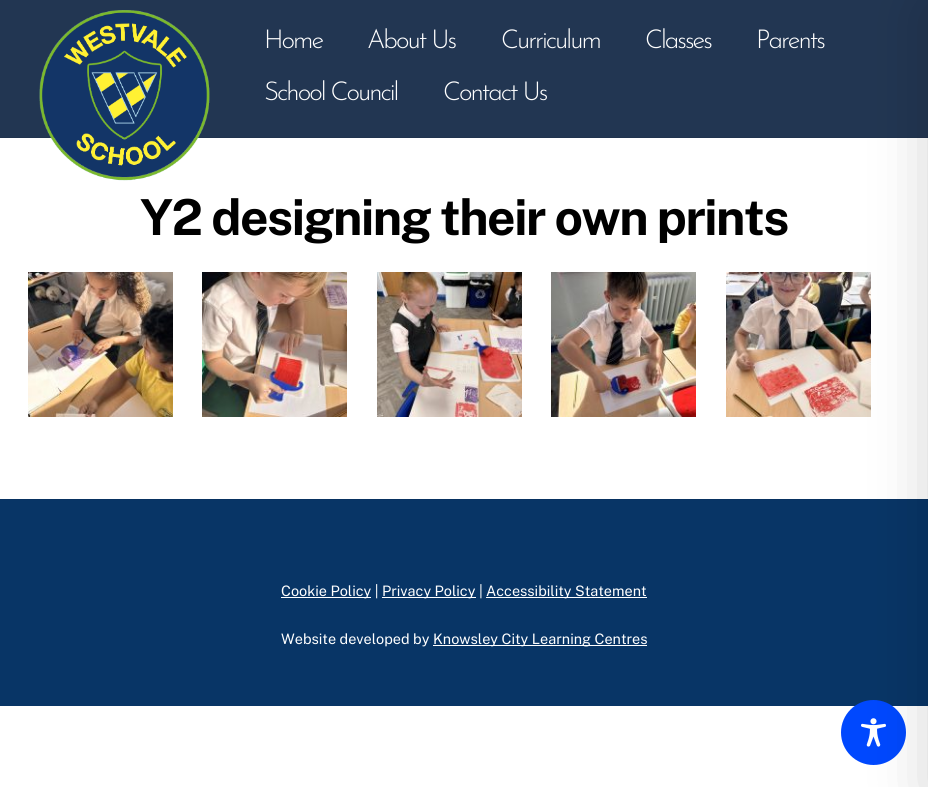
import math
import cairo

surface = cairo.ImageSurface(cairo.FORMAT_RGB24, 928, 787)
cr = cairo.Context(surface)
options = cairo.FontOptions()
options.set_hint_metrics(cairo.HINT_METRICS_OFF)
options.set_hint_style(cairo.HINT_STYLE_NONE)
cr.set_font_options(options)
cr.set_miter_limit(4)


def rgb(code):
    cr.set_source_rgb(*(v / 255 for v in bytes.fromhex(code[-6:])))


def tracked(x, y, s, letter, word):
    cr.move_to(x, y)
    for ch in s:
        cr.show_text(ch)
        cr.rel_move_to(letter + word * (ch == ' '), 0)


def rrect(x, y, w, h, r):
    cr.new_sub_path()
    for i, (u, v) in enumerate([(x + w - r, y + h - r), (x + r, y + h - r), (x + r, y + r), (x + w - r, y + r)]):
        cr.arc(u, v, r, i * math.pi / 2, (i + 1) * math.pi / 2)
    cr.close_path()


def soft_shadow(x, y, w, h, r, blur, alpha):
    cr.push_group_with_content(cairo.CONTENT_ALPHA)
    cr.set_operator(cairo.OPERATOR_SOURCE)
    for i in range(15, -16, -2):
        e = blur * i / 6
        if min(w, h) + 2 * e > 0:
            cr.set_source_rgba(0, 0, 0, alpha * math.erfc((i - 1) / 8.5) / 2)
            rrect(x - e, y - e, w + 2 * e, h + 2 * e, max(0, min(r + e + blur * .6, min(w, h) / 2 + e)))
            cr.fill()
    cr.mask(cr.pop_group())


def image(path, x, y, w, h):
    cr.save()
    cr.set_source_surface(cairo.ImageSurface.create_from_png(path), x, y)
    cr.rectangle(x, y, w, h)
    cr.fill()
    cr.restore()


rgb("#ffffff")
cr.paint()
rgb("#223652")
cr.rectangle(0, 0, 928, 137)
cr.fill()
rgb("#20334e")
cr.rectangle(0, 137, 928, 1)
cr.fill()
image("img/1.png", 39, 10, 171, 171)
image("img/2.png", 28, 272, 145, 145)
image("img/3.png", 202, 272, 145, 145)
image("img/4.png", 377, 272, 145, 145)
image("img/5.png", 551, 272, 145, 145)
image("img/6.png", 726, 272, 145, 145)
for x, y, w, h, color in [
    (0, 500, 928, 206, "#083566"),
    (0, 499, 928, 1, "#083261"),
    (281, 597, 90, 1, "#ffffff"),
    (382, 597, 94, 1, "#ffffff"),
    (486, 597, 161, 1, "#ffffff"),
    (433, 645, 214, 1, "#ffffff"),
]:
    rgb(color)
    cr.rectangle(x, y, w, h)
    cr.fill()
rgb("#0048fe")
cr.arc(873.5, 732.5, 32.5, 0, 2 * math.pi)
cr.fill()
image("img/7.png", 861, 718, 25, 29)
rgb("#000000")
soft_shadow(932, 10, 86, 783, 0, 30, 0.2)
cr.select_font_face("Josefin Sans Light")
cr.set_font_size(26)
rgb("#ffffff")
for x, y, s in [
    (264, 48, "Home"),
    (367, 48, "About Us"),
    (501, 48, "Curriculum"),
    (645, 48, "Classes"),
    (756, 48, "Parents"),
    (264, 100, "School Council"),
    (443, 100, "Contact Us"),
]:
    tracked(x, y, s, -2, 0)
cr.select_font_face("Public Sans", cairo.FONT_SLANT_NORMAL, cairo.FONT_WEIGHT_BOLD)
cr.set_font_size(49.6)
rgb("#000000")
tracked(140, 235, "Y2 designing their own prints", -1.5, 0)
cr.select_font_face("Public Sans")
cr.set_font_size(14.4)
rgb("#ffffff")
for x, y, s in [
    (281, 596, "Cookie Policy |"),
    (382, 596, "Privacy Policy |"),
    (486, 596, "Accessibility Statement"),
    (281, 644, "Website developed by"),
    (433, 644, "Knowsley City Learning Centres"),
]:
    cr.move_to(x, y)
    cr.show_text(s)
surface.write_to_png("page.png")
